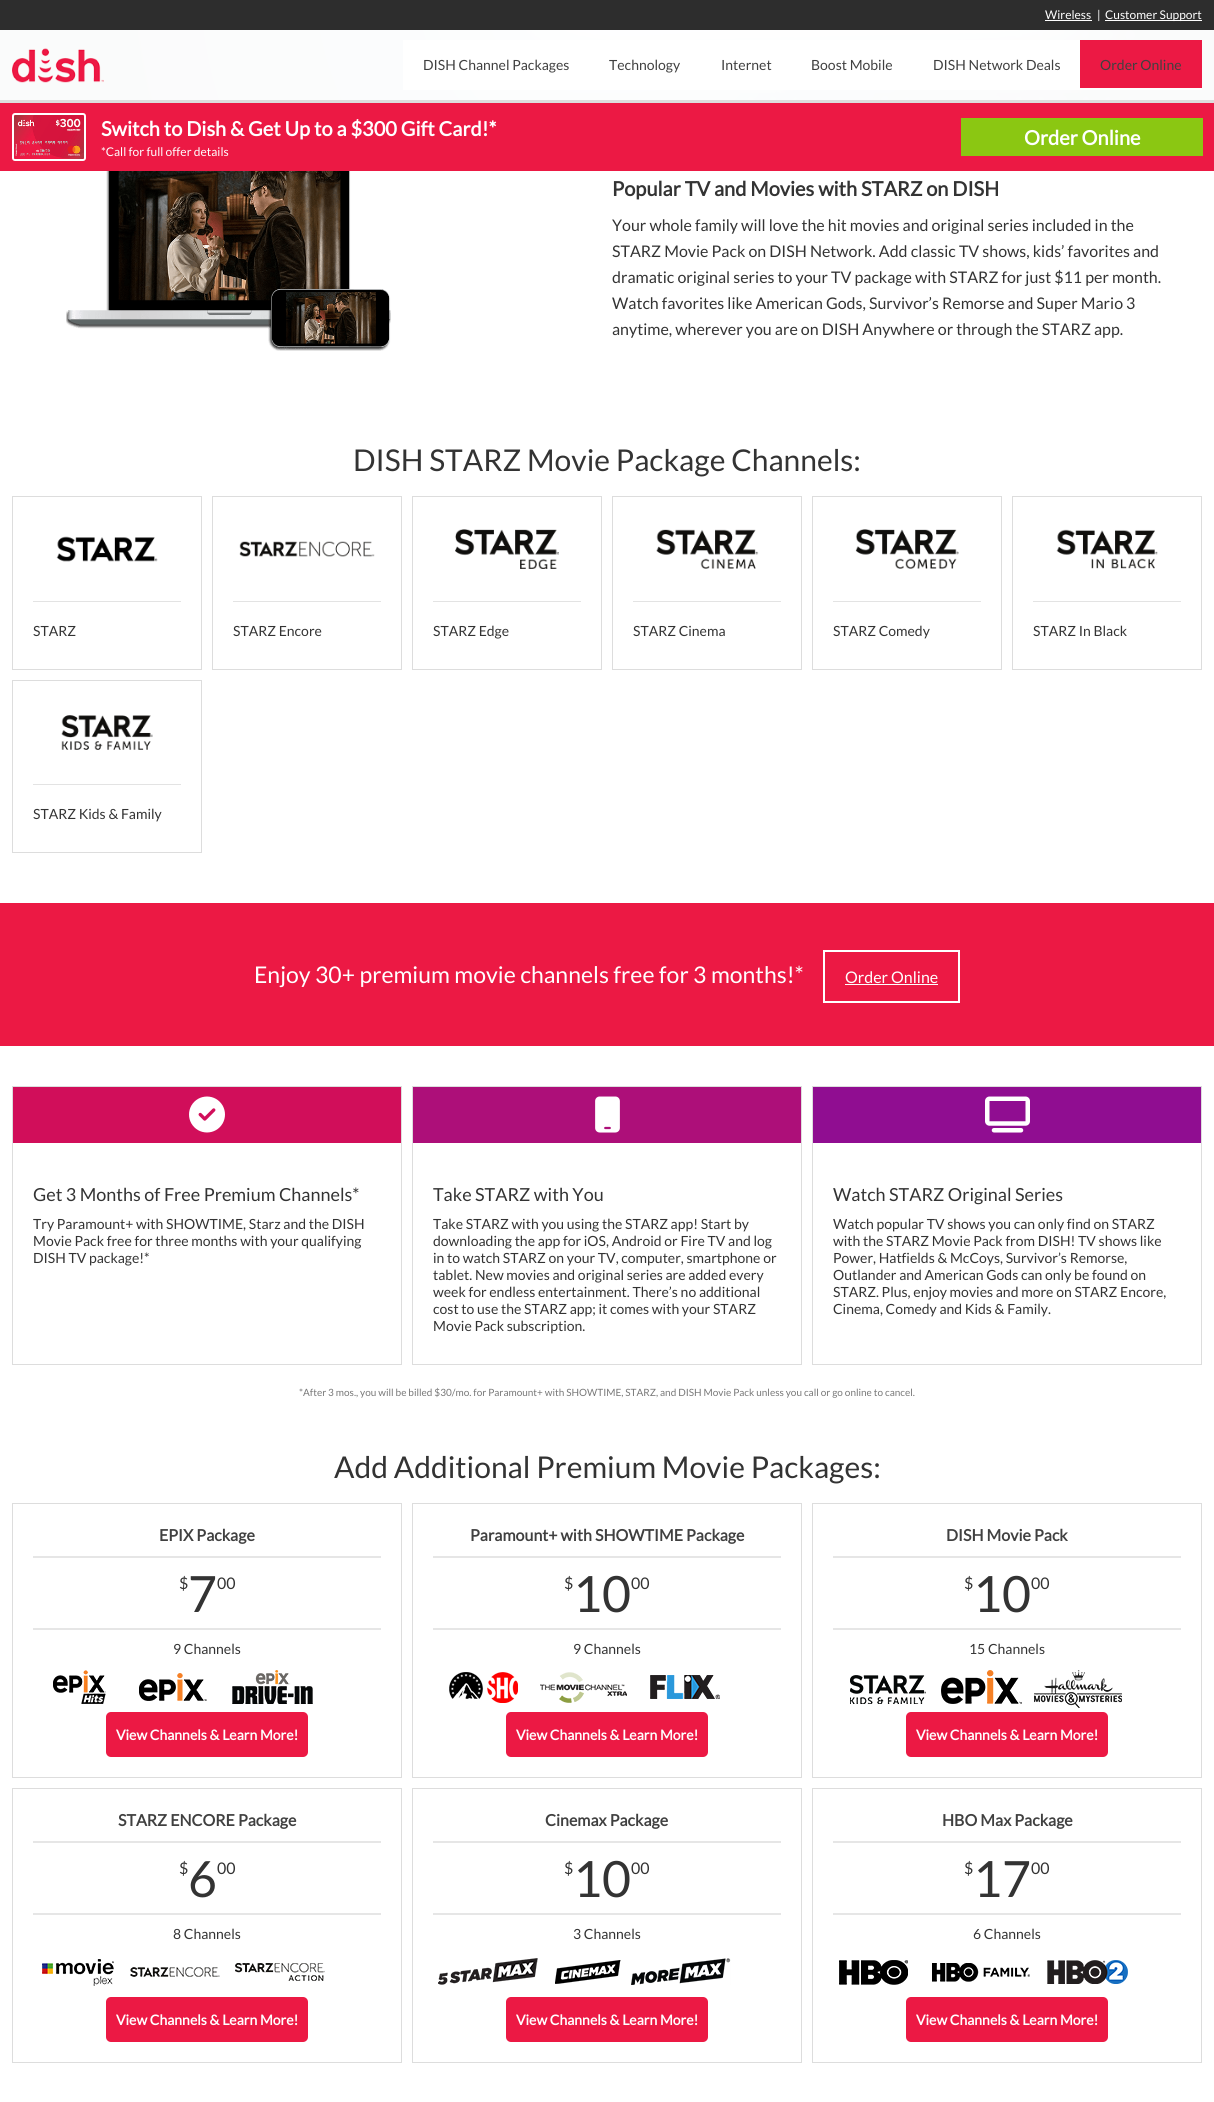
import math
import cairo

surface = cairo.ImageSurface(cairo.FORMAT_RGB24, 1214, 2102)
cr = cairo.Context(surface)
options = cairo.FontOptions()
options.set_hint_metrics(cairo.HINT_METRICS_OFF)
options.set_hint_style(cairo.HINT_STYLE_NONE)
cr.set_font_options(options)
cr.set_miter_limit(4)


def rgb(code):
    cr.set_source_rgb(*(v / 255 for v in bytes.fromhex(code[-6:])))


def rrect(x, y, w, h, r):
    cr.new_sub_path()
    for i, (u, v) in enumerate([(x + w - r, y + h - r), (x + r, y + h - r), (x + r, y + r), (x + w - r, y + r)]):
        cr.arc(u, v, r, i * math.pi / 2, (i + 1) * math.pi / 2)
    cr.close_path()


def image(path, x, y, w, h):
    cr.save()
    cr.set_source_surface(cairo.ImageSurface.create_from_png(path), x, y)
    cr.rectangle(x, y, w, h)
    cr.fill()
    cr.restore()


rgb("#ffffff")
cr.paint()
for x, y, w, h, color in [
    (0, 0, 1214, 30, "#2d2d2d"),
    (1045, 20, 47, 1, "#ffffff"),
    (1105, 20, 97, 1, "#ffffff"),
]:
    rgb(color)
    cr.rectangle(x, y, w, h)
    cr.fill()
gradient = cairo.RadialGradient(607, -23, 0, 607, -23, 620)
gradient.add_color_stop_rgba(0, 0.42, 0.678, 0.827, 1)
gradient.add_color_stop_rgba(1, 0, 0.102, 0.133, 1)
cr.set_source(gradient)
cr.rectangle(0, 30, 1214, 70)
cr.fill()
image("img/1.png", 527, 30, 676, 70)
image("img/2.png", 477, 30, 665, 63)
rgb("#ec1944")
cr.rectangle(0, 103, 1214, 68)
cr.fill()
rrect(13, 114, 72, 46, 2)
rgb("#ffffff")
cr.stroke()
image("img/3.png", 14, 115, 70, 44)
rgb("#8bc712")
cr.rectangle(961, 118, 242, 38)
cr.fill()
image("img/4.png", 66, 171, 325, 180)
cr.rectangle(12.5, 496.5, 189, 173)
rgb("#dddddd")
cr.set_line_width(1)
cr.stroke()
image("img/5.png", 56, 536, 102, 26)
rgb("#e3e3e3")
cr.rectangle(33, 601, 148, 1)
cr.fill()
cr.rectangle(212.5, 496.5, 189, 173)
rgb("#dddddd")
cr.stroke()
image("img/6.png", 239, 541, 136, 16)
rgb("#e3e3e3")
cr.rectangle(233, 601, 148, 1)
cr.fill()
cr.rectangle(412.5, 496.5, 189, 173)
rgb("#dddddd")
cr.stroke()
image("img/7.png", 455, 529, 104, 40)
rgb("#e3e3e3")
cr.rectangle(433, 601, 148, 1)
cr.fill()
cr.rectangle(612.5, 496.5, 189, 173)
rgb("#dddddd")
cr.stroke()
image("img/8.png", 656, 529, 103, 40)
rgb("#e3e3e3")
cr.rectangle(633, 601, 148, 1)
cr.fill()
cr.rectangle(812.5, 496.5, 189, 173)
rgb("#dddddd")
cr.stroke()
image("img/9.png", 855, 529, 104, 40)
rgb("#e3e3e3")
cr.rectangle(833, 601, 148, 1)
cr.fill()
cr.rectangle(1012.5, 496.5, 189, 173)
rgb("#dddddd")
cr.stroke()
image("img/10.png", 1056, 529, 102, 40)
rgb("#e3e3e3")
cr.rectangle(1033, 601, 148, 1)
cr.fill()
cr.rectangle(12.5, 680.5, 189, 172)
rgb("#dddddd")
cr.stroke()
image("img/11.png", 61, 715, 92, 35)
rgb("#e3e3e3")
cr.rectangle(33, 784, 148, 1)
cr.fill()
rgb("#ec1944")
cr.rectangle(0, 903, 1214, 143)
cr.fill()
cr.rectangle(824, 951, 135, 51)
rgb("#ffffff")
cr.set_line_width(2)
cr.stroke()
cr.rectangle(845, 984, 93, 1)
cr.fill()
cr.rectangle(12.5, 1086.5, 389, 278)
rgb("#dddddd")
cr.set_line_width(1)
cr.stroke()
rgb("#d10e5a")
cr.rectangle(13, 1087, 388, 56)
cr.fill()
image("img/12.png", 189, 1096, 36, 37)
cr.rectangle(412.5, 1086.5, 389, 278)
rgb("#dddddd")
cr.stroke()
rgb("#ad0f79")
cr.rectangle(413, 1087, 388, 56)
cr.fill()
image("img/13.png", 595, 1096, 25, 37)
cr.rectangle(812.5, 1086.5, 389, 278)
rgb("#dddddd")
cr.stroke()
rgb("#900d91")
cr.rectangle(813, 1087, 388, 56)
cr.fill()
image("img/14.png", 985, 1096, 45, 37)
cr.rectangle(12.5, 1503.5, 389, 274)
rgb("#dddddd")
cr.stroke()
rgb("#e6e6e6")
cr.rectangle(33, 1556, 348, 2)
cr.fill()
cr.rectangle(33, 1628, 348, 2)
cr.fill()
image("img/15.png", 53, 1670, 260, 34)
rgb("#ec1944")
rrect(106, 1712, 202, 45, 5)
cr.fill()
cr.rectangle(412.5, 1503.5, 389, 274)
rgb("#dddddd")
cr.stroke()
rgb("#e6e6e6")
cr.rectangle(433, 1556, 348, 2)
cr.fill()
cr.rectangle(433, 1628, 348, 2)
cr.fill()
image("img/16.png", 449, 1672, 271, 31)
rgb("#ec1944")
rrect(506, 1712, 202, 45, 5)
cr.fill()
cr.rectangle(812.5, 1503.5, 389, 274)
rgb("#dddddd")
cr.stroke()
rgb("#e6e6e6")
cr.rectangle(833, 1556, 348, 2)
cr.fill()
cr.rectangle(833, 1628, 348, 2)
cr.fill()
image("img/17.png", 850, 1670, 272, 38)
rgb("#ec1944")
rrect(906, 1712, 202, 45, 5)
cr.fill()
cr.rectangle(12.5, 1788.5, 389, 274)
rgb("#dddddd")
cr.stroke()
rgb("#e6e6e6")
cr.rectangle(33, 1841, 348, 2)
cr.fill()
cr.rectangle(33, 1913, 348, 2)
cr.fill()
image("img/18.png", 42, 1959, 283, 27)
rgb("#ec1944")
rrect(106, 1997, 202, 45, 5)
cr.fill()
cr.rectangle(412.5, 1788.5, 389, 274)
rgb("#dddddd")
cr.stroke()
rgb("#e6e6e6")
cr.rectangle(433, 1841, 348, 2)
cr.fill()
cr.rectangle(433, 1913, 348, 2)
cr.fill()
image("img/19.png", 438, 1958, 293, 27)
rgb("#ec1944")
rrect(506, 1997, 202, 45, 5)
cr.fill()
cr.rectangle(812.5, 1788.5, 389, 274)
rgb("#dddddd")
cr.stroke()
rgb("#e6e6e6")
cr.rectangle(833, 1841, 348, 2)
cr.fill()
cr.rectangle(833, 1913, 348, 2)
cr.fill()
image("img/20.png", 839, 1960, 289, 25)
rgb("#ec1944")
rrect(906, 1997, 202, 45, 5)
cr.fill()
cr.set_source_rgba(1, 1, 1, 0.98)
cr.rectangle(0, 30, 1214, 70)
cr.fill()
rgb("#dddddd")
cr.rectangle(0, 100, 1214, 3)
cr.fill()
image("img/21.png", 12, 48, 92, 35)
for x, y, w, h, color in [
    (403, 40, 677, 50, "#ffffff"),
    (1080, 40, 122, 48, "#ec1944"),
    (1080, 88, 122, 2, "#ffffff"),
]:
    rgb(color)
    cr.rectangle(x, y, w, h)
    cr.fill()
cr.select_font_face("Lato")
cr.set_font_size(12)
for x, y, s in [
    (1045, 19, "Wireless"),
    (1097, 19, "|"),
    (1105, 19, "Customer Support"),
]:
    cr.move_to(x, y)
    cr.show_text(s)
cr.select_font_face("Lato", cairo.FONT_SLANT_NORMAL, cairo.FONT_WEIGHT_BOLD)
cr.set_font_size(20)
cr.move_to(101, 136)
cr.show_text("Switch to Dish & Get Up to a $300 Gift Card!*")
cr.select_font_face("Lato")
cr.set_font_size(12)
cr.move_to(101, 156)
cr.show_text("*Call for full offer details")
cr.select_font_face("Lato", cairo.FONT_SLANT_NORMAL, cairo.FONT_WEIGHT_BOLD)
cr.set_font_size(20)
cr.move_to(1024, 145)
cr.show_text("Order Online")
rgb("#333333")
cr.move_to(612, 196)
cr.show_text("Popular TV and Movies with STARZ on DISH")
cr.select_font_face("Lato")
cr.set_font_size(16)
for x, y, s in [
    (612, 231, "Your whole family will love the hit movies and original series included in the"),
    (612, 257, "STARZ Movie Pack on DISH Network. Add classic TV shows, kids’ favorites and"),
    (612, 283, "dramatic original series to your TV package with STARZ for just $11 per month."),
    (612, 309, "Watch favorites like American Gods, Survivor’s Remorse and Super Mario 3"),
    (612, 335, "anytime, wherever you are on DISH Anywhere or through the STARZ app."),
]:
    cr.move_to(x, y)
    cr.show_text(s)
cr.set_font_size(30)
cr.move_to(353, 471)
cr.show_text("DISH STARZ Movie Package Channels:")
cr.set_font_size(14)
for x, y, s in [
    (33, 636, "STARZ"),
    (233, 636, "STARZ Encore"),
    (433, 636, "STARZ Edge"),
    (633, 636, "STARZ Cinema"),
    (833, 636, "STARZ Comedy"),
    (1033, 636, "STARZ In Black"),
    (33, 819, "STARZ Kids & Family"),
]:
    cr.move_to(x, y)
    cr.show_text(s)
cr.set_font_size(23)
rgb("#ffffff")
cr.move_to(254, 983)
cr.show_text("Enjoy 30+ premium movie channels free for 3 months!*")
cr.set_font_size(16)
cr.move_to(845, 983)
cr.show_text("Order Online")
cr.set_font_size(18)
rgb("#333333")
cr.move_to(33, 1201)
cr.show_text("Get 3 Months of Free Premium Channels*")
cr.set_font_size(14)
for x, y, s in [
    (33, 1229, "Try Paramount+ with SHOWTIME, Starz and the DISH"),
    (33, 1246, "Movie Pack free for three months with your qualifying"),
    (33, 1263, "DISH TV package!*"),
]:
    cr.move_to(x, y)
    cr.show_text(s)
cr.set_font_size(18)
cr.move_to(433, 1201)
cr.show_text("Take STARZ with You")
cr.set_font_size(14)
for x, y, s in [
    (433, 1229, "Take STARZ with you using the STARZ app! Start by"),
    (433, 1246, "downloading the app for iOS, Android or Fire TV and log"),
    (433, 1263, "in to watch STARZ on your TV, computer, smartphone or"),
    (433, 1280, "tablet. New movies and original series are added every"),
    (433, 1297, "week for endless entertainment. There’s no additional"),
    (433, 1314, "cost to use the STARZ app; it comes with your STARZ"),
    (433, 1331, "Movie Pack subscription."),
]:
    cr.move_to(x, y)
    cr.show_text(s)
cr.set_font_size(18)
cr.move_to(833, 1201)
cr.show_text("Watch STARZ Original Series")
cr.set_font_size(14)
for x, y, s in [
    (833, 1229, "Watch popular TV shows you can only find on STARZ"),
    (833, 1246, "with the STARZ Movie Pack from DISH! TV shows like"),
    (833, 1263, "Power, Hatfields & McCoys, Survivor’s Remorse,"),
    (833, 1280, "Outlander and American Gods can only be found on"),
    (833, 1297, "STARZ. Plus, enjoy movies and more on STARZ Encore,"),
    (833, 1314, "Cinema, Comedy and Kids & Family."),
]:
    cr.move_to(x, y)
    cr.show_text(s)
cr.set_font_size(10)
rgb("#777777")
cr.move_to(299, 1396)
cr.show_text("*After 3 mos., you will be billed $30/mo. for Paramount+ with SHOWTIME, STARZ, and DISH Movie Pack unless you call or go online to cancel.")
cr.set_font_size(30)
rgb("#333333")
cr.move_to(334, 1478)
cr.show_text("Add Additional Premium Movie Packages:")
cr.select_font_face("Lato", cairo.FONT_SLANT_NORMAL, cairo.FONT_WEIGHT_BOLD)
cr.set_font_size(16)
rgb("#404040")
cr.move_to(159, 1541)
cr.show_text("EPIX Package")
cr.select_font_face("Lato")
rgb("#333333")
cr.move_to(179, 1589)
cr.show_text("$")
cr.set_font_size(50)
cr.move_to(188, 1612)
cr.show_text("7")
cr.set_font_size(16)
cr.move_to(217, 1589)
cr.show_text("00")
cr.set_font_size(14)
cr.move_to(173, 1654)
cr.show_text("9 Channels")
cr.select_font_face("Lato", cairo.FONT_SLANT_NORMAL, cairo.FONT_WEIGHT_BOLD)
rgb("#ffffff")
cr.move_to(116, 1740)
cr.show_text("View Channels & Learn More!")
cr.set_font_size(16)
rgb("#404040")
cr.move_to(470, 1541)
cr.show_text("Paramount+ with SHOWTIME Package")
cr.select_font_face("Lato")
rgb("#333333")
cr.move_to(564, 1589)
cr.show_text("$")
cr.set_font_size(50)
cr.move_to(573, 1612)
cr.show_text("10")
cr.set_font_size(16)
cr.move_to(631, 1589)
cr.show_text("00")
cr.set_font_size(14)
cr.move_to(573, 1654)
cr.show_text("9 Channels")
cr.select_font_face("Lato", cairo.FONT_SLANT_NORMAL, cairo.FONT_WEIGHT_BOLD)
rgb("#ffffff")
cr.move_to(516, 1740)
cr.show_text("View Channels & Learn More!")
cr.set_font_size(16)
rgb("#404040")
cr.move_to(946, 1541)
cr.show_text("DISH Movie Pack")
cr.select_font_face("Lato")
rgb("#333333")
cr.move_to(964, 1589)
cr.show_text("$")
cr.set_font_size(50)
cr.move_to(973, 1612)
cr.show_text("10")
cr.set_font_size(16)
cr.move_to(1031, 1589)
cr.show_text("00")
cr.set_font_size(14)
cr.move_to(969, 1654)
cr.show_text("15 Channels")
cr.select_font_face("Lato", cairo.FONT_SLANT_NORMAL, cairo.FONT_WEIGHT_BOLD)
rgb("#ffffff")
cr.move_to(916, 1740)
cr.show_text("View Channels & Learn More!")
cr.set_font_size(16)
rgb("#404040")
cr.move_to(118, 1826)
cr.show_text("STARZ ENCORE Package")
cr.select_font_face("Lato")
rgb("#333333")
cr.move_to(179, 1874)
cr.show_text("$")
cr.set_font_size(50)
cr.move_to(188, 1897)
cr.show_text("6")
cr.set_font_size(16)
cr.move_to(217, 1874)
cr.show_text("00")
cr.set_font_size(14)
cr.move_to(173, 1939)
cr.show_text("8 Channels")
cr.select_font_face("Lato", cairo.FONT_SLANT_NORMAL, cairo.FONT_WEIGHT_BOLD)
rgb("#ffffff")
cr.move_to(116, 2025)
cr.show_text("View Channels & Learn More!")
cr.set_font_size(16)
rgb("#404040")
cr.move_to(545, 1826)
cr.show_text("Cinemax Package")
cr.select_font_face("Lato")
rgb("#333333")
cr.move_to(564, 1874)
cr.show_text("$")
cr.set_font_size(50)
cr.move_to(573, 1897)
cr.show_text("10")
cr.set_font_size(16)
cr.move_to(631, 1874)
cr.show_text("00")
cr.set_font_size(14)
cr.move_to(573, 1939)
cr.show_text("3 Channels")
cr.select_font_face("Lato", cairo.FONT_SLANT_NORMAL, cairo.FONT_WEIGHT_BOLD)
rgb("#ffffff")
cr.move_to(516, 2025)
cr.show_text("View Channels & Learn More!")
cr.set_font_size(16)
rgb("#404040")
cr.move_to(942, 1826)
cr.show_text("HBO Max Package")
cr.select_font_face("Lato")
rgb("#333333")
cr.move_to(964, 1874)
cr.show_text("$")
cr.set_font_size(50)
cr.move_to(973, 1897)
cr.show_text("17")
cr.set_font_size(16)
cr.move_to(1031, 1874)
cr.show_text("00")
cr.set_font_size(14)
cr.move_to(973, 1939)
cr.show_text("6 Channels")
cr.select_font_face("Lato", cairo.FONT_SLANT_NORMAL, cairo.FONT_WEIGHT_BOLD)
rgb("#ffffff")
cr.move_to(916, 2025)
cr.show_text("View Channels & Learn More!")
cr.select_font_face("Lato")
rgb("#404040")
for x, y, s in [
    (423, 70, "DISH Channel Packages"),
    (609, 70, "Technology"),
    (721, 70, "Internet"),
    (811, 70, "Boost Mobile"),
    (933, 70, "DISH Network Deals"),
    (1100, 70, "Order Online"),
]:
    cr.move_to(x, y)
    cr.show_text(s)
surface.write_to_png("page.png")
